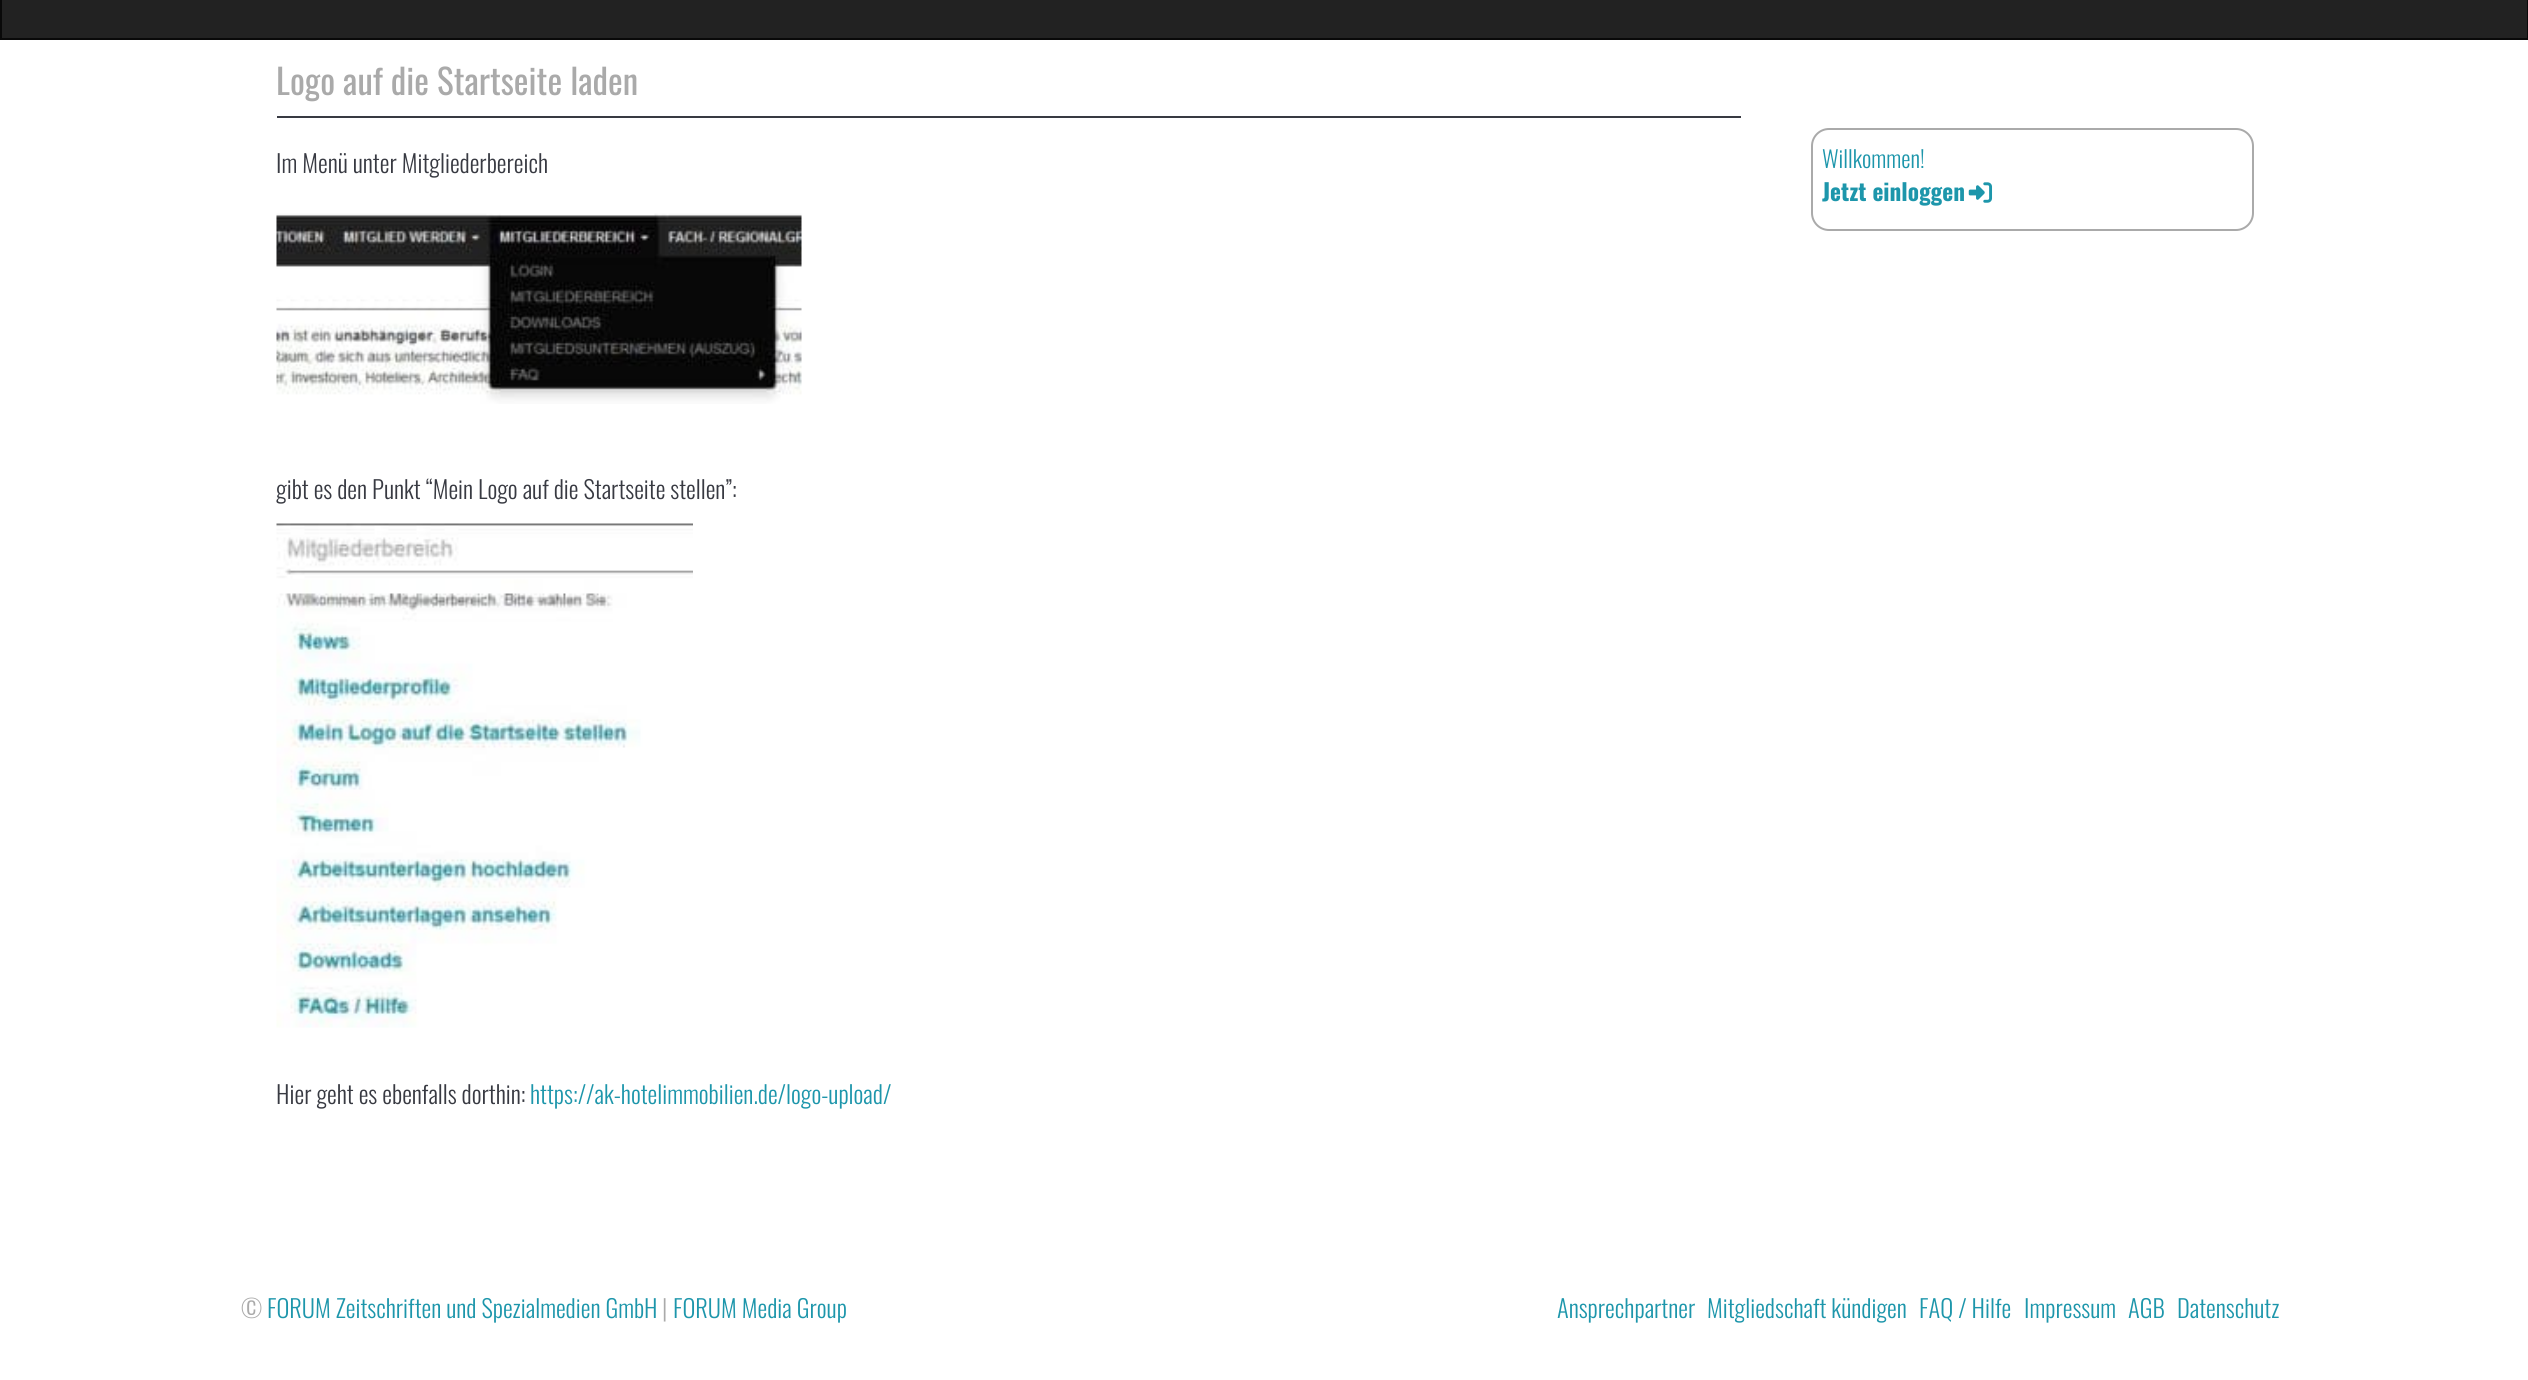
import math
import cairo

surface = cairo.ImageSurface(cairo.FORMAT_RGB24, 2528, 1380)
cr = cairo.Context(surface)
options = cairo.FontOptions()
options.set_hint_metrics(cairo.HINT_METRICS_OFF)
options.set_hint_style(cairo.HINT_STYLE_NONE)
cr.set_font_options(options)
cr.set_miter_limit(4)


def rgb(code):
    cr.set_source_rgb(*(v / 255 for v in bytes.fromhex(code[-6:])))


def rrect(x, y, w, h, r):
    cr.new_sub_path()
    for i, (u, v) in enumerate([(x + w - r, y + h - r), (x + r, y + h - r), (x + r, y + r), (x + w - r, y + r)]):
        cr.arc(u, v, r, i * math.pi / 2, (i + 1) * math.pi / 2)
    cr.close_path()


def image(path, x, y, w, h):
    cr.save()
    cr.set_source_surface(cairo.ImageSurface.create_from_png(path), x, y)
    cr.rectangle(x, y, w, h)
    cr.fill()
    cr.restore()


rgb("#ffffff")
cr.paint()
rgb("#222222")
cr.rectangle(1, -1, 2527, 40)
cr.fill_preserve()
rgb("#090909")
cr.stroke()
rgb("#383a42")
cr.rectangle(277, 116, 1464, 2)
cr.fill()
image("img/1.png", 276, 213, 526, 191)
image("img/2.png", 276, 523, 417, 505)
rrect(1812, 129, 441, 101, 17)
rgb("#aaaaaa")
cr.stroke()
image("img/3.png", 1968, 182, 25, 21)
cr.select_font_face("Oswald")
cr.set_font_size(35)
cr.move_to(276, 95)
cr.show_text("Logo auf die Startseite laden")
cr.select_font_face("Oswald Light")
cr.set_font_size(24.5)
rgb("#383a42")
for x, y, s in [
    (276, 173, "Im Menü unter Mitgliederbereich"),
    (276, 499, "gibt es den Punkt “Mein Logo auf die Startseite stellen”:"),
    (276, 1104, "Hier geht es ebenfalls dorthin:"),
]:
    cr.move_to(x, y)
    cr.show_text(s)
rgb("#1d96ab")
cr.move_to(530, 1104)
cr.show_text("https://ak-hotelimmobilien.de/logo-upload/")
cr.set_font_size(23.25)
cr.move_to(1822, 168)
cr.show_text("Willkommen!")
cr.select_font_face("Oswald", cairo.FONT_SLANT_NORMAL, cairo.FONT_WEIGHT_BOLD)
cr.move_to(1822, 201)
cr.show_text("Jetzt einloggen")
cr.select_font_face("Oswald Light")
cr.set_font_size(24.5)
rgb("#aaaaaa")
cr.move_to(241, 1318)
cr.show_text("©")
rgb("#1d96ab")
cr.move_to(267, 1318)
cr.show_text("FORUM Zeitschriften und Spezialmedien GmbH")
rgb("#aaaaaa")
cr.move_to(662, 1318)
cr.show_text("|")
rgb("#1d96ab")
for x, y, s in [
    (673, 1318, "FORUM Media Group"),
    (1557, 1318, "Ansprechpartner"),
    (1707, 1318, "Mitgliedschaft kündigen"),
    (1919, 1318, "FAQ / Hilfe"),
    (2024, 1318, "Impressum"),
    (2128, 1318, "AGB"),
    (2177, 1318, "Datenschutz"),
]:
    cr.move_to(x, y)
    cr.show_text(s)
surface.write_to_png("page.png")
